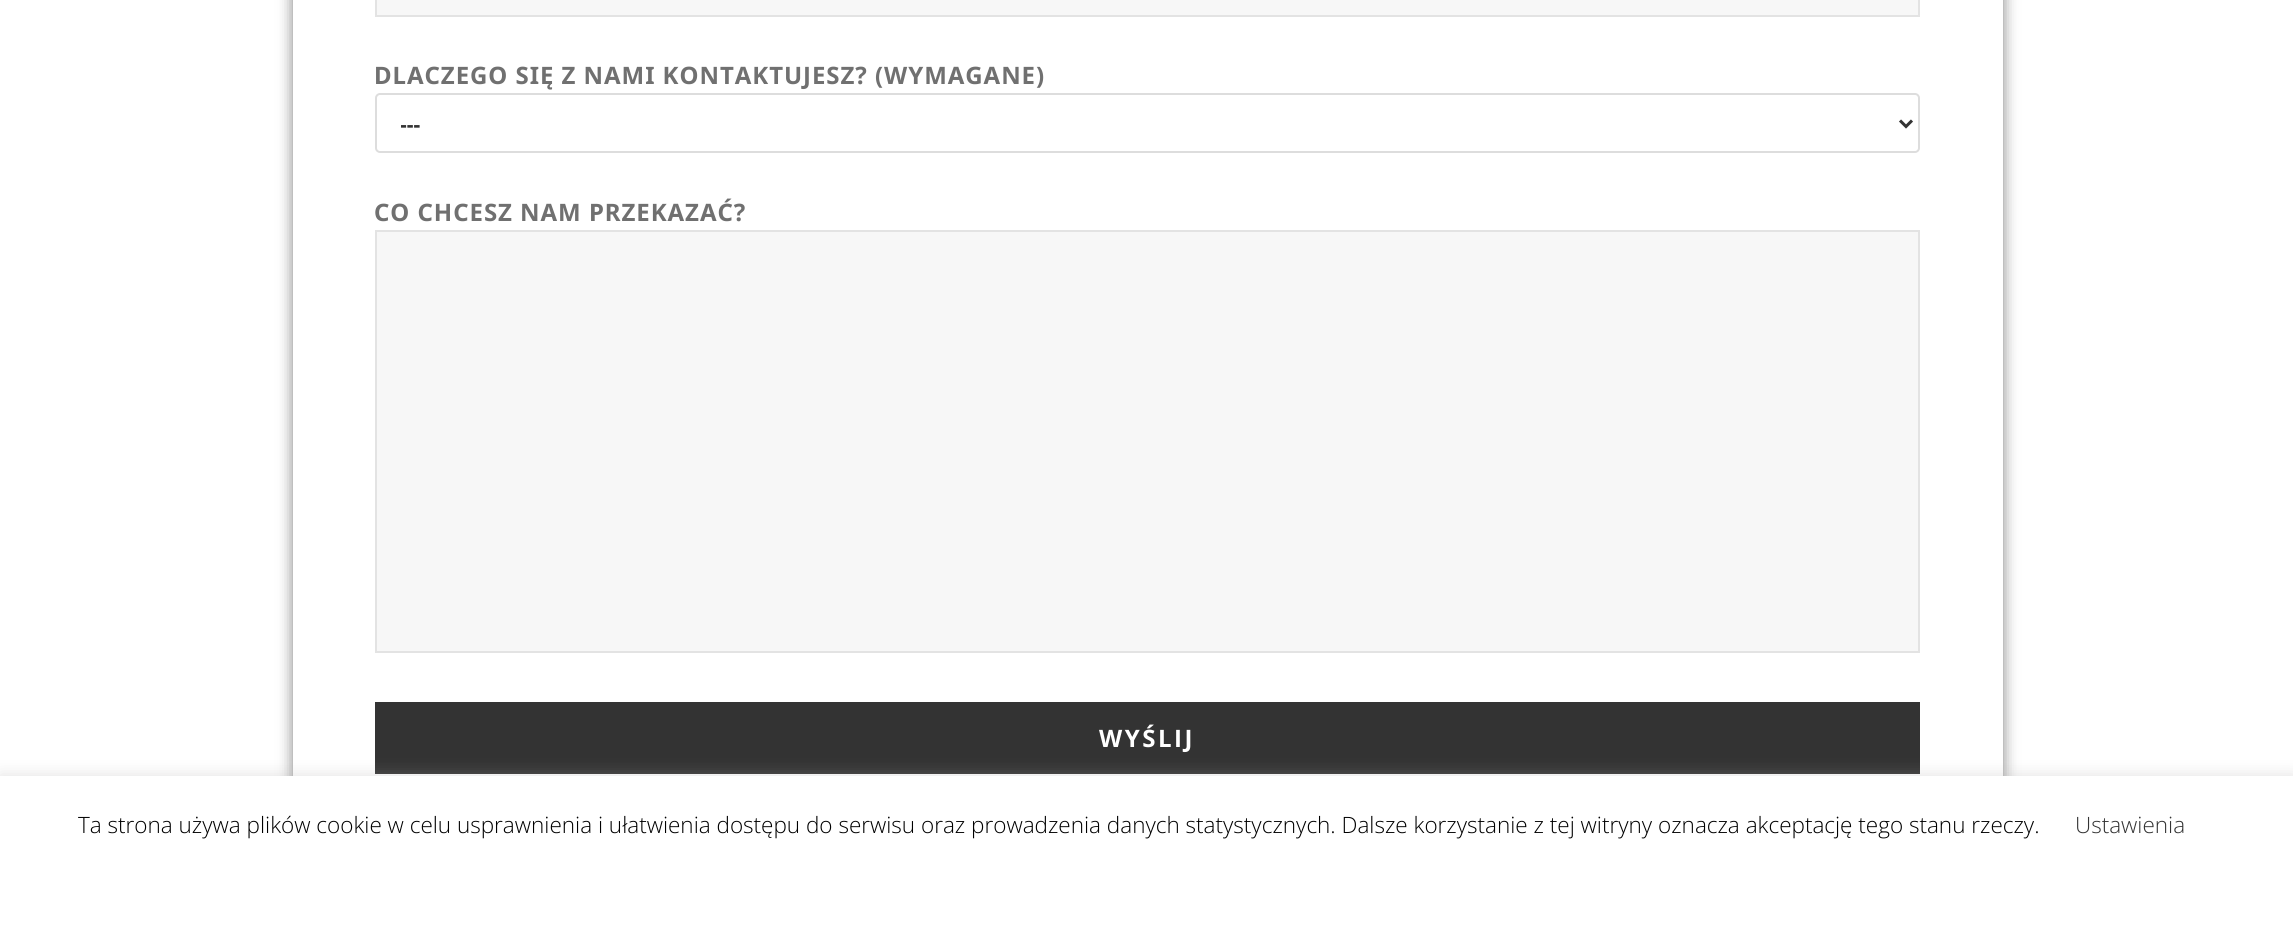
import math
import cairo

surface = cairo.ImageSurface(cairo.FORMAT_RGB24, 2293, 930)
cr = cairo.Context(surface)
options = cairo.FontOptions()
options.set_hint_metrics(cairo.HINT_METRICS_OFF)
options.set_hint_style(cairo.HINT_STYLE_NONE)
cr.set_font_options(options)
cr.set_miter_limit(4)


def rgb(code):
    cr.set_source_rgb(*(v / 255 for v in bytes.fromhex(code[-6:])))


def tracked(x, y, s, letter, word):
    cr.move_to(x, y)
    for ch in s:
        cr.show_text(ch)
        cr.rel_move_to(letter + word * (ch == ' '), 0)


def rrect(x, y, w, h, r):
    cr.new_sub_path()
    for i, (u, v) in enumerate([(x + w - r, y + h - r), (x + r, y + h - r), (x + r, y + r), (x + w - r, y + r)]):
        cr.arc(u, v, r, i * math.pi / 2, (i + 1) * math.pi / 2)
    cr.close_path()


def soft_shadow(x, y, w, h, r, blur, alpha):
    cr.push_group_with_content(cairo.CONTENT_ALPHA)
    cr.set_operator(cairo.OPERATOR_SOURCE)
    for i in range(15, -16, -2):
        e = blur * i / 6
        if min(w, h) + 2 * e > 0:
            cr.set_source_rgba(0, 0, 0, alpha * math.erfc((i - 1) / 8.5) / 2)
            rrect(x - e, y - e, w + 2 * e, h + 2 * e, max(0, min(r + e + blur * .6, min(w, h) / 2 + e)))
            cr.fill()
    cr.mask(cr.pop_group())


rgb("#ffffff")
cr.paint()
cr.save()
cr.set_fill_rule(cairo.FILL_RULE_EVEN_ODD)
cr.new_path()
cr.move_to(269, 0)
cr.line_to(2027, 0)
cr.line_to(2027, 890)
cr.line_to(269, 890)
cr.close_path()
cr.move_to(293, -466)
cr.line_to(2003, -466)
cr.line_to(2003, 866)
cr.line_to(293, 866)
cr.close_path()
cr.clip()
rgb("#000000")
soft_shadow(293, -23, 1710, 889, 0, 7.5, 0.5)
cr.restore()
rgb("#f7f7f7")
cr.rectangle(376, -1, 1543, 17)
cr.fill_preserve()
rgb("#e3e3e3")
cr.stroke()
rrect(376, 94, 1543, 58, 4)
rgb("#dddddd")
cr.stroke()
cr.new_path()
cr.move_to(1900, 120.5)
cr.line_to(1906, 126.5)
cr.line_to(1912, 120.5)
rgb("#333333")
cr.set_line_width(3)
cr.stroke()
rgb("#f7f7f7")
cr.rectangle(376, 231, 1543, 421)
cr.fill_preserve()
rgb("#e3e3e3")
cr.set_line_width(2)
cr.stroke()
rgb("#333333")
cr.rectangle(375, 702, 1545, 72)
cr.fill()
rgb("#acabab")
soft_shadow(0, 774, 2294, 155, 0, 7.5, 0.3)
rgb("#ffffff")
cr.rectangle(0, 776, 2293, 154)
cr.fill()
cr.select_font_face("Noto Sans", cairo.FONT_SLANT_NORMAL, cairo.FONT_WEIGHT_BOLD)
cr.set_font_size(24)
rgb("#707070")
tracked(374, 84, "DLACZEGO SIĘ Z NAMI KONTAKTUJESZ? (WYMAGANE)", 0.95, 0)
cr.save()
cr.rectangle(401, 108, 1476, 32)
cr.clip()
cr.set_font_size(21)
rgb("#333333")
cr.move_to(400, 132)
cr.show_text("---")
cr.restore()
tracked(374, 221, "CO CHCESZ NAM PRZEKAZAĆ?", 0.95, 0)
cr.select_font_face("Open Sans", cairo.FONT_SLANT_NORMAL, cairo.FONT_WEIGHT_BOLD)
rgb("#ffffff")
tracked(1099, 747, "WYŚLIJ", 2.5, 0)
cr.select_font_face("Open Sans Light")
cr.set_font_size(22.5)
rgb("#000000")
cr.move_to(78, 833)
cr.show_text("Ta strona używa plików cookie w celu usprawnienia i ułatwienia dostępu do serwisu oraz prowadzenia danych statystycznych. Dalsze korzystanie z tej witryny oznacza akceptację tego stanu rzeczy.")
rgb("#333333")
cr.move_to(2075, 833)
cr.show_text("Ustawienia")
surface.write_to_png("page.png")
